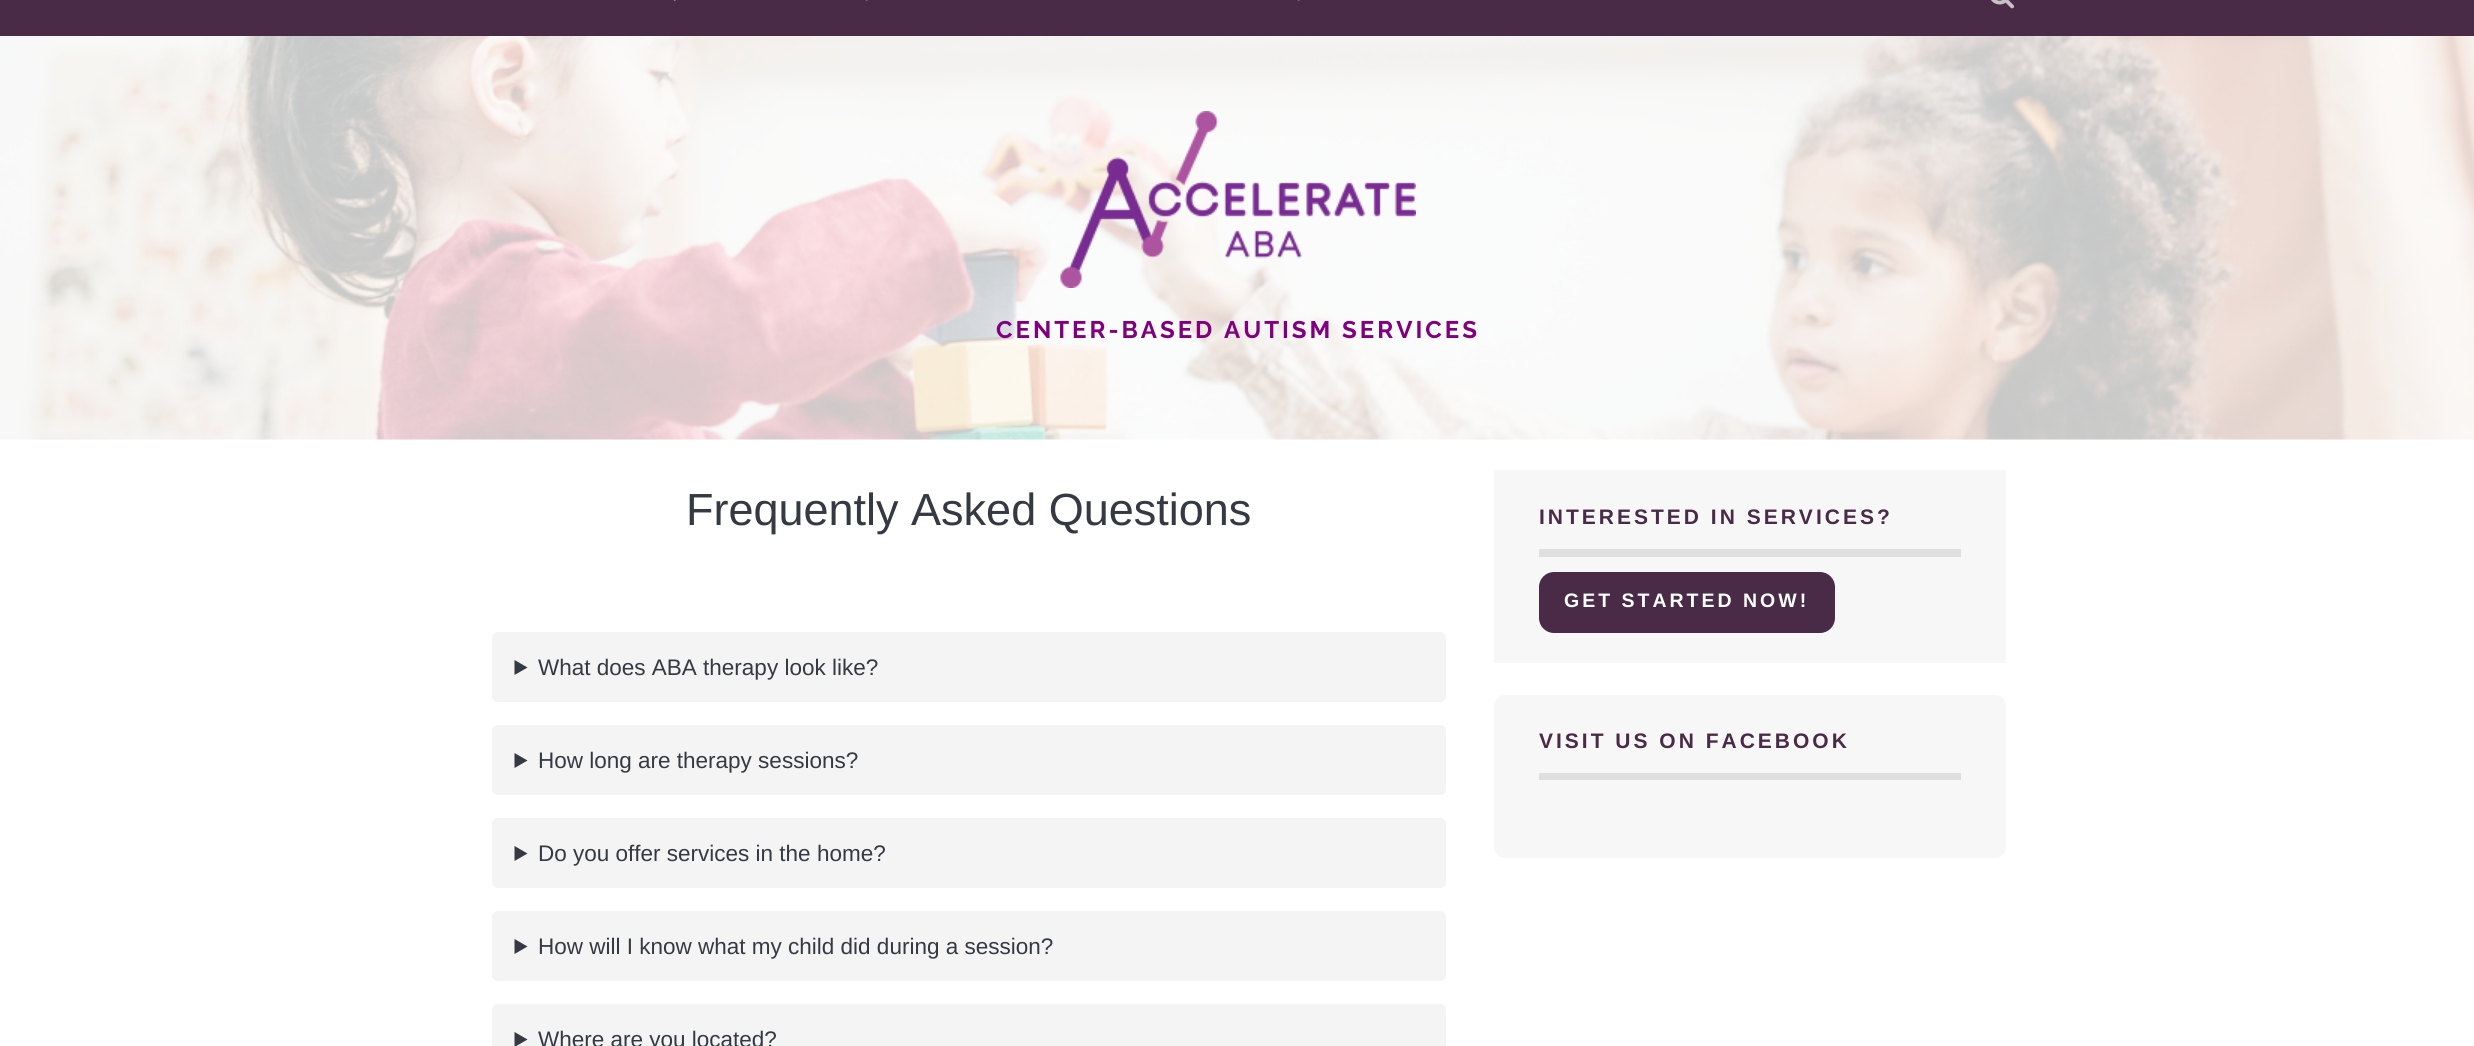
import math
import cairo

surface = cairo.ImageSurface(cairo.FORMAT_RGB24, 2474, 1046)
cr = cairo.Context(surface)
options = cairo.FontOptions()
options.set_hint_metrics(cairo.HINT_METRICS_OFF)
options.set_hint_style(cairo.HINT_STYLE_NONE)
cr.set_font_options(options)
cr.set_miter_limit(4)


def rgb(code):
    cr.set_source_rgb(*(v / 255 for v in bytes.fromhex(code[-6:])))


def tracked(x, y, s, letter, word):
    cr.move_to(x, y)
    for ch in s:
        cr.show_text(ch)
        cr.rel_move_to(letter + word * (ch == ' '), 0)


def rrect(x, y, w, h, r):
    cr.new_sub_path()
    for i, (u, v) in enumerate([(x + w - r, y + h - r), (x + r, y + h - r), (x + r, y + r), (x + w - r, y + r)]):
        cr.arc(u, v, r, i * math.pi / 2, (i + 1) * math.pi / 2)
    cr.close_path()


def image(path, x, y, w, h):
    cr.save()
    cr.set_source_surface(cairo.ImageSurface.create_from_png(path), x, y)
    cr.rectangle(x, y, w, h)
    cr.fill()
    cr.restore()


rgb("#ffffff")
cr.paint()
rgb("#492b47")
cr.rectangle(0, 0, 2474, 36)
cr.fill()
image("img/1.png", 673, 0, 3, 1)
image("img/2.png", 865, 0, 3, 1)
image("img/2.png", 1297, 0, 3, 1)
image("img/3.png", 1991, 0, 23, 9)
image("img/4.png", 0, 36, 2474, 404)
image("img/5.png", 1060, 111, 356, 177)
rgb("#f4f4f5")
rrect(492, 632, 954, 70, 6)
cr.fill()
rgb("#333a42")
cr.new_path()
cr.move_to(514.5, 660)
cr.line_to(527.5, 667.5)
cr.line_to(514.5, 675)
cr.close_path()
cr.fill()
rgb("#f4f4f5")
rrect(492, 725, 954, 70, 6)
cr.fill()
rgb("#333a42")
cr.new_path()
cr.move_to(514.5, 753)
cr.line_to(527.5, 760.5)
cr.line_to(514.5, 768)
cr.close_path()
cr.fill()
rgb("#f4f4f5")
rrect(492, 818, 954, 70, 6)
cr.fill()
rgb("#333a42")
cr.new_path()
cr.move_to(514.5, 846)
cr.line_to(527.5, 853.5)
cr.line_to(514.5, 861)
cr.close_path()
cr.fill()
rgb("#f4f4f5")
rrect(492, 911, 954, 70, 6)
cr.fill()
rgb("#333a42")
cr.new_path()
cr.move_to(514.5, 939)
cr.line_to(527.5, 946.5)
cr.line_to(514.5, 954)
cr.close_path()
cr.fill()
rgb("#f4f4f5")
rrect(492, 1004, 954, 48, 6)
cr.fill()
rgb("#333a42")
cr.new_path()
cr.move_to(514.5, 1032)
cr.line_to(527.5, 1039.5)
cr.line_to(514.5, 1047)
cr.close_path()
cr.fill()
rgb("#f7f7f7")
cr.rectangle(1494, 470, 512, 193)
cr.fill()
rgb("#dfdfdf")
cr.rectangle(1539, 549, 422, 8)
cr.fill()
rgb("#492b47")
rrect(1539, 572, 296, 61, 15)
cr.fill()
rgb("#f7f7f7")
rrect(1494, 695, 512, 163, 11)
cr.fill()
rgb("#dfdfdf")
cr.rectangle(1539, 773, 422, 7)
cr.fill()
cr.select_font_face("Raleway", cairo.FONT_SLANT_NORMAL, cairo.FONT_WEIGHT_BOLD)
cr.set_font_size(24)
rgb("#800080")
tracked(996, 338, "CENTER-BASED AUTISM SERVICES", 3, 0)
cr.select_font_face("Arimo")
cr.set_font_size(45)
rgb("#333a42")
cr.move_to(686, 525)
cr.show_text("Frequently Asked Questions")
cr.set_font_size(22.5)
for x, y, s in [
    (538, 675, "What does ABA therapy look like?"),
    (538, 768, "How long are therapy sessions?"),
    (538, 861, "Do you offer services in the home?"),
    (538, 954, "How will I know what my child did during a session?"),
    (538, 1047, "Where are you located?"),
]:
    cr.move_to(x, y)
    cr.show_text(s)
cr.select_font_face("Liberation Sans", cairo.FONT_SLANT_NORMAL, cairo.FONT_WEIGHT_BOLD)
cr.set_font_size(21)
rgb("#492b47")
tracked(1539, 524, "INTERESTED IN SERVICES?", 3, 0)
cr.select_font_face("Arimo", cairo.FONT_SLANT_NORMAL, cairo.FONT_WEIGHT_BOLD)
cr.set_font_size(19.5)
rgb("#ffffff")
tracked(1564, 607, "GET STARTED NOW!", 3, 0)
cr.select_font_face("Liberation Sans", cairo.FONT_SLANT_NORMAL, cairo.FONT_WEIGHT_BOLD)
cr.set_font_size(21)
rgb("#492b47")
tracked(1539, 748, "VISIT US ON FACEBOOK", 3, 0)
surface.write_to_png("page.png")
